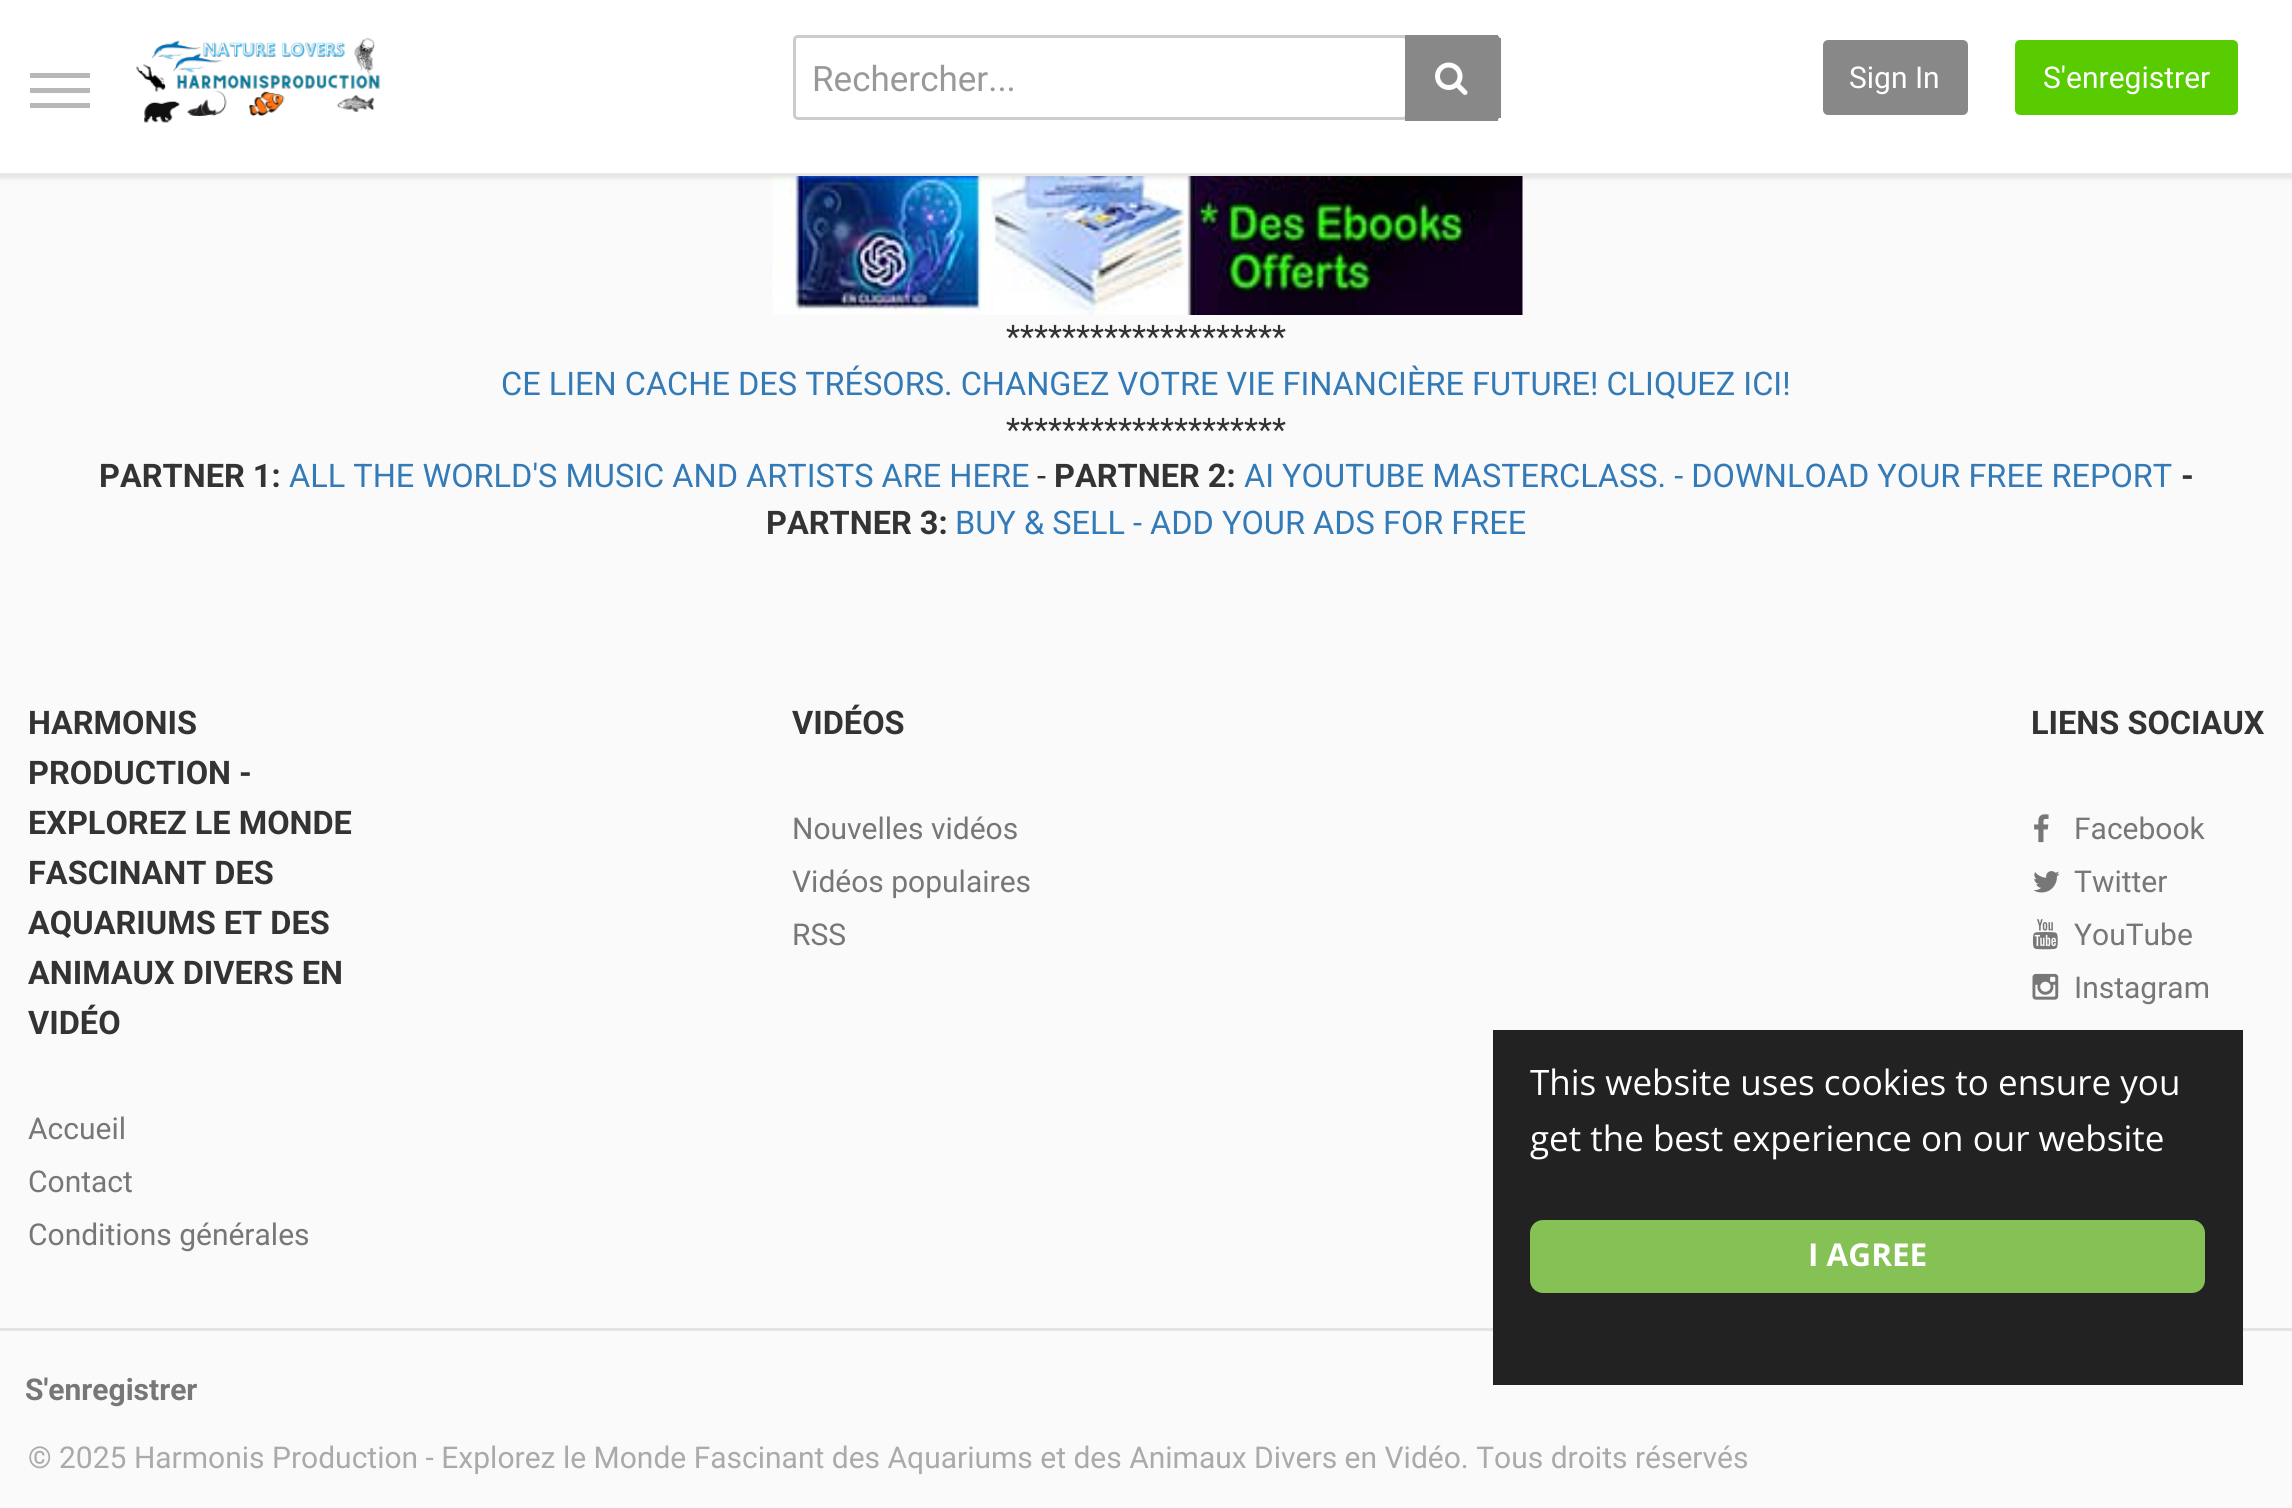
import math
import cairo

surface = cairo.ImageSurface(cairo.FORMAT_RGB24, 2292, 1508)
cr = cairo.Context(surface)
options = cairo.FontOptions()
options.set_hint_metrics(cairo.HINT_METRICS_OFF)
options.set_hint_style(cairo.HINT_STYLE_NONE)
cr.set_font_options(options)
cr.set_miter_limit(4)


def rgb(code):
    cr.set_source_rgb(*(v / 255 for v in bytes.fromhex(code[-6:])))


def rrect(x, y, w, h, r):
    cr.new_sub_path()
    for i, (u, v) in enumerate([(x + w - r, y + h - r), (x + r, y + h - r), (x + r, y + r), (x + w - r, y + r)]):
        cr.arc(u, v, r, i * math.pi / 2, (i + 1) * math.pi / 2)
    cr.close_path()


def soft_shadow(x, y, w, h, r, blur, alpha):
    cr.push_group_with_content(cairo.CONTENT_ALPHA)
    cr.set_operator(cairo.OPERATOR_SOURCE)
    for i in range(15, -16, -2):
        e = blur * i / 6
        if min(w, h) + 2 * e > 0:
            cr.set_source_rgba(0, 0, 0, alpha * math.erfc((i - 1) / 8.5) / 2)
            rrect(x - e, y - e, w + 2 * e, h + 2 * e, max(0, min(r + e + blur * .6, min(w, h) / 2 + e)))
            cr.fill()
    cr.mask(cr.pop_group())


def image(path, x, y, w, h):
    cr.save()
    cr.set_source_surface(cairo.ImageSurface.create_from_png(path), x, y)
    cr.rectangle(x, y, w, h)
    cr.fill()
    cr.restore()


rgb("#fafafa")
cr.paint()
image("img/3.png", 772, 176, 751, 139)
rgb("#000000")
soft_shadow(0, 3, 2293, 175, 0, 2.5, 0.1)
for x, y, w, h, color in [
    (0, 0, 2292, 173, "#ffffff"),
    (0, 173, 2292, 3, "#e8e8e8"),
    (30, 88, 60, 5, "#b8b8b8"),
    (30, 73, 60, 5, "#b8b8b8"),
    (30, 103, 60, 5, "#b8b8b8"),
]:
    rgb(color)
    cr.rectangle(x, y, w, h)
    cr.fill()
image("img/1.png", 136, 38, 245, 85)
rrect(794.5, 36.5, 612, 82, 3.5)
rgb("#cccccc")
cr.set_line_width(3)
cr.stroke()
rgb("#888888")
cr.new_path()
cr.move_to(1405, 35)
cr.line_to(1495, 35)
cr.curve_to(1498, 35, 1500, 37, 1500, 40)
cr.line_to(1500, 115)
cr.curve_to(1500, 118, 1498, 120, 1495, 120)
cr.line_to(1405, 120)
cr.close_path()
cr.fill()
for x, y, w, h, color in [
    (1495, 35, 3, 1, "#888888"),
    (1499, 38, 2, 80, "#888888"),
    (1405, 119, 93, 2, "#888888"),
]:
    rgb(color)
    cr.rectangle(x, y, w, h)
    cr.fill()
image("img/2.png", 1435, 62, 33, 33)
rrect(1824.5, 41.5, 142, 72, 3.5)
cr.fill_preserve()
cr.stroke()
rgb("#58cc00")
rrect(2016.5, 41.5, 220, 72, 3.5)
cr.fill_preserve()
cr.stroke()
image("img/4.png", 2034, 814, 15, 29)
image("img/5.png", 2033, 871, 27, 22)
image("img/6.png", 2032, 919, 26, 31)
image("img/7.png", 2032, 973, 27, 27)
rgb("#e3e3e3")
cr.rectangle(0, 1328, 2292, 3)
cr.fill()
rgb("#222222")
cr.rectangle(1493, 1030, 750, 355)
cr.fill()
rgb("#85c154")
rrect(1530, 1220, 675, 73, 13)
cr.fill()
cr.select_font_face("Roboto")
cr.set_font_size(35)
rgb("#999999")
cr.move_to(812, 91)
cr.show_text("Rechercher...")
cr.set_font_size(30)
rgb("#ffffff")
cr.move_to(1849, 88)
cr.show_text("Sign In")
cr.move_to(2043, 88)
cr.show_text("S'enregistrer")
cr.set_font_size(32.5)
rgb("#333333")
cr.move_to(1006, 348)
cr.show_text("********************")
rgb("#337ab7")
cr.move_to(501, 395)
cr.show_text("CE LIEN CACHE DES TRÉSORS. CHANGEZ VOTRE VIE FINANCIÈRE FUTURE! CLIQUEZ ICI!")
rgb("#333333")
cr.move_to(1006, 441)
cr.show_text("********************")
cr.select_font_face("Roboto", cairo.FONT_SLANT_NORMAL, cairo.FONT_WEIGHT_BOLD)
cr.move_to(99, 487)
cr.show_text("PARTNER 1:")
cr.select_font_face("Roboto")
rgb("#337ab7")
cr.move_to(289, 487)
cr.show_text("ALL THE WORLD'S MUSIC AND ARTISTS ARE HERE")
rgb("#333333")
cr.move_to(1037, 487)
cr.show_text("-")
cr.select_font_face("Roboto", cairo.FONT_SLANT_NORMAL, cairo.FONT_WEIGHT_BOLD)
cr.move_to(1054, 487)
cr.show_text("PARTNER 2:")
cr.select_font_face("Roboto")
rgb("#337ab7")
cr.move_to(1244, 487)
cr.show_text("AI YOUTUBE MASTERCLASS. - DOWNLOAD YOUR FREE REPORT")
cr.select_font_face("Roboto", cairo.FONT_SLANT_NORMAL, cairo.FONT_WEIGHT_BOLD)
rgb("#333333")
cr.move_to(2181, 487)
cr.show_text("-")
cr.move_to(766, 534)
cr.show_text("PARTNER 3:")
cr.select_font_face("Roboto")
rgb("#337ab7")
cr.move_to(955, 534)
cr.show_text("BUY & SELL - ADD YOUR ADS FOR FREE")
cr.select_font_face("Roboto", cairo.FONT_SLANT_NORMAL, cairo.FONT_WEIGHT_BOLD)
rgb("#333333")
for x, y, s in [
    (28, 734, "HARMONIS"),
    (28, 784, "PRODUCTION -"),
    (28, 834, "EXPLOREZ LE MONDE"),
    (28, 884, "FASCINANT DES"),
    (28, 934, "AQUARIUMS ET DES"),
    (28, 984, "ANIMAUX DIVERS EN"),
    (28, 1034, "VIDÉO"),
]:
    cr.move_to(x, y)
    cr.show_text(s)
cr.select_font_face("Roboto")
cr.set_font_size(30)
rgb("#777777")
for x, y, s in [
    (28, 1139, "Accueil"),
    (28, 1192, "Contact"),
    (28, 1245, "Conditions générales"),
]:
    cr.move_to(x, y)
    cr.show_text(s)
cr.select_font_face("Roboto", cairo.FONT_SLANT_NORMAL, cairo.FONT_WEIGHT_BOLD)
cr.set_font_size(32.5)
rgb("#333333")
cr.move_to(792, 734)
cr.show_text("VIDÉOS")
cr.select_font_face("Roboto")
cr.set_font_size(30)
rgb("#777777")
for x, y, s in [
    (792, 839, "Nouvelles vidéos"),
    (792, 892, "Vidéos populaires"),
    (792, 945, "RSS"),
]:
    cr.move_to(x, y)
    cr.show_text(s)
cr.select_font_face("Roboto", cairo.FONT_SLANT_NORMAL, cairo.FONT_WEIGHT_BOLD)
cr.set_font_size(32.5)
rgb("#333333")
cr.move_to(2031, 734)
cr.show_text("LIENS SOCIAUX")
cr.select_font_face("Roboto")
cr.set_font_size(30)
rgb("#777777")
for x, y, s in [
    (2074, 839, "Facebook"),
    (2074, 892, "Twitter"),
    (2074, 945, "YouTube"),
    (2074, 998, "Instagram"),
]:
    cr.move_to(x, y)
    cr.show_text(s)
cr.select_font_face("Roboto", cairo.FONT_SLANT_NORMAL, cairo.FONT_WEIGHT_BOLD)
cr.move_to(25, 1400)
cr.show_text("S'enregistrer")
cr.select_font_face("Roboto")
rgb("#aaaaaa")
cr.move_to(28, 1468)
cr.show_text("© 2025 Harmonis Production - Explorez le Monde Fascinant des Aquariums et des Animaux Divers en Vidéo. Tous droits réservés")
cr.select_font_face("Open Sans")
cr.set_font_size(35)
rgb("#ffffff")
cr.move_to(1530, 1095)
cr.show_text("This website uses cookies to ensure you")
cr.move_to(1530, 1151)
cr.show_text("get the best experience on our website")
cr.select_font_face("Open Sans", cairo.FONT_SLANT_NORMAL, cairo.FONT_WEIGHT_BOLD)
cr.set_font_size(31.5)
cr.move_to(1808, 1266)
cr.show_text("I AGREE")
surface.write_to_png("page.png")
